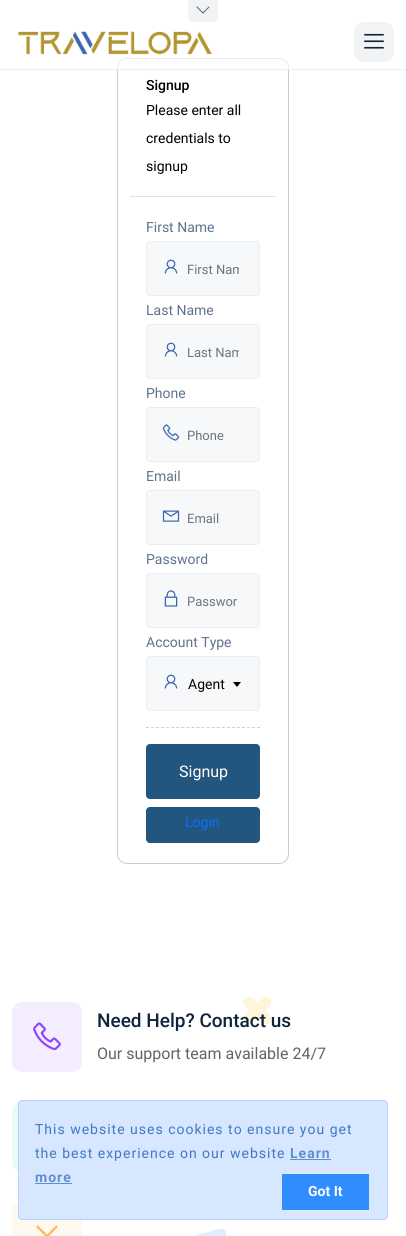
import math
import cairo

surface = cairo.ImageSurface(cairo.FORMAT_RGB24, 406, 1236)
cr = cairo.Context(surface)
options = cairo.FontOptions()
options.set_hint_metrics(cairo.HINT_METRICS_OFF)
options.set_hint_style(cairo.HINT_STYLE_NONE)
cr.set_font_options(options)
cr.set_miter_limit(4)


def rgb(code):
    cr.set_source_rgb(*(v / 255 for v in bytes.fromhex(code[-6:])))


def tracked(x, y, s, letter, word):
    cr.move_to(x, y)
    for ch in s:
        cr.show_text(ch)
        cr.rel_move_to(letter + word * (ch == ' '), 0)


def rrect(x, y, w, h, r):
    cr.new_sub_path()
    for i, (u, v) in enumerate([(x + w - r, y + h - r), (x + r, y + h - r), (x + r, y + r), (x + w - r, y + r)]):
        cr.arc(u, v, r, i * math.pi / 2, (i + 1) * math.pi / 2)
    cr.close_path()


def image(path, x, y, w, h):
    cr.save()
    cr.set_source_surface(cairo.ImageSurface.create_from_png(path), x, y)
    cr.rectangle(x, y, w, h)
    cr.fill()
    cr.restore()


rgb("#ffffff")
cr.paint()
rrect(117.5, 58.5, 171, 805, 9.5)
rgb("#cccccc")
cr.set_line_width(1)
cr.stroke()
cr.set_source_rgba(1, 1, 1, 0.6)
cr.rectangle(117, 58, 172, 11)
cr.fill()
rgb("#eeeeee")
cr.rectangle(0, 69, 406, 1)
cr.fill()
rgb("#f2f3f4")
cr.new_path()
cr.move_to(188, 0)
cr.line_to(218, 0)
cr.line_to(218, 18)
cr.curve_to(218, 20, 216, 22, 214, 22)
cr.line_to(192, 22)
cr.curve_to(190, 22, 188, 20, 188, 18)
cr.close_path()
cr.fill()
image("img/1.png", 196, 6, 14, 8)
image("img/2.png", 17, 31, 195, 24)
rrect(354, 22, 40, 40, 10)
cr.fill()
image("img/3.png", 364, 33, 20, 16)
rgb("#dee2e6")
cr.rectangle(130, 196, 146, 1)
cr.fill()
rgb("#f6f8fa")
rrect(146.5, 241.5, 113, 54, 3.5)
cr.fill_preserve()
rgb("#e9eef2")
cr.stroke()
image("img/4.png", 164, 259, 14, 15)
rgb("#f6f8fa")
rrect(146.5, 324.5, 113, 54, 3.5)
cr.fill_preserve()
rgb("#e9eef2")
cr.stroke()
image("img/4.png", 164, 342, 14, 15)
rgb("#f6f8fa")
rrect(146.5, 407.5, 113, 54, 3.5)
cr.fill_preserve()
rgb("#e9eef2")
cr.stroke()
image("img/5.png", 162, 424, 18, 17)
rgb("#f6f8fa")
rrect(146.5, 490.5, 113, 54, 3.5)
cr.fill_preserve()
rgb("#e9eef2")
cr.stroke()
image("img/6.png", 162, 510, 18, 12)
rgb("#f6f8fa")
rrect(146.5, 573.5, 113, 54, 3.5)
cr.fill_preserve()
rgb("#e9eef2")
cr.stroke()
image("img/7.png", 164, 590, 14, 17)
rgb("#f6f8fa")
rrect(146.5, 656.5, 113, 54, 3.5)
cr.fill_preserve()
rgb("#e9eef2")
cr.stroke()
image("img/4.png", 164, 674, 14, 15)
rgb("#000000")
cr.new_path()
cr.move_to(233, 682)
cr.line_to(241, 682)
cr.line_to(237, 687)
cr.close_path()
cr.fill()
cr.new_path()
cr.move_to(146, 727.5)
cr.line_to(260, 727.5)
rgb("#cfd0d0")
cr.set_dash([3, 2.05])
cr.stroke()
rgb("#22567e")
rrect(146, 744, 114, 55, 4)
cr.fill()
rrect(146.5, 807.5, 113, 35, 3.5)
cr.fill_preserve()
cr.set_dash([])
cr.stroke()
image("img/8.png", 194, 996, 77, 240)
rgb("#f4ecff")
rrect(12, 1002, 70, 70, 10)
cr.fill()
image("img/9.png", 33, 1022, 28, 29)
rgb("#eafbf6")
rrect(12, 1102, 70, 70, 10)
cr.fill()
rgb("#fef8ee")
rrect(12, 1202, 70, 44, 10)
cr.fill()
image("img/10.png", 36, 1225, 22, 11)
rgb("#d7e7ff")
rrect(18.5, 1100.5, 369, 119, 3.5)
cr.fill_preserve()
rgb("#b4d2ff")
cr.stroke()
for x, y, w, h, color in [
    (290, 1159, 41, 1, "#5f8fcf"),
    (35, 1183, 37, 1, "#5f8fcf"),
    (282, 1174, 87, 36, "#308dff"),
]:
    rgb(color)
    cr.rectangle(x, y, w, h)
    cr.fill()
cr.select_font_face("Roboto Medium")
cr.set_font_size(14)
rgb("#000000")
cr.move_to(146, 90)
cr.show_text("Signup")
cr.select_font_face("Roboto")
for x, y, s in [
    (146, 115, "Please enter all"),
    (146, 143, "credentials to"),
    (146, 171, "signup"),
]:
    cr.move_to(x, y)
    cr.show_text(s)
rgb("#5f738c")
cr.move_to(146, 232)
cr.show_text("First Name")
cr.save()
cr.rectangle(187, 262, 52, 15)
cr.clip()
cr.set_font_size(13)
rgb("#6c757d")
cr.move_to(187, 274)
cr.show_text("First Nam")
cr.restore()
cr.move_to(146, 315)
cr.show_text("Last Name")
cr.save()
cr.rectangle(187, 345, 52, 15)
cr.clip()
cr.set_font_size(13)
rgb("#6c757d")
cr.move_to(187, 357)
cr.show_text("Last Nam")
cr.restore()
cr.move_to(146, 398)
cr.show_text("Phone")
cr.set_font_size(13)
rgb("#6c757d")
cr.move_to(187, 440)
cr.show_text("Phone")
cr.set_font_size(14)
rgb("#5f738c")
cr.move_to(146, 481)
cr.show_text("Email")
cr.set_font_size(13)
rgb("#6c757d")
cr.move_to(187, 523)
cr.show_text("Email")
cr.set_font_size(14)
rgb("#5f738c")
cr.move_to(146, 564)
cr.show_text("Password")
cr.set_font_size(13)
rgb("#6c757d")
cr.move_to(187, 606)
cr.show_text("Passwor")
cr.set_font_size(14)
rgb("#5f738c")
cr.move_to(146, 647)
cr.show_text("Account Type")
rgb("#000000")
cr.move_to(188, 689)
cr.show_text("Agent")
cr.set_font_size(16)
rgb("#ffffff")
cr.move_to(179, 777)
cr.show_text("Signup")
cr.set_font_size(14)
rgb("#0d6efd")
cr.move_to(185, 827)
cr.show_text("Login")
cr.select_font_face("Roboto Medium")
cr.set_font_size(19)
rgb("#0d233e")
cr.move_to(97, 1027)
cr.show_text("Need Help? Contact us")
cr.select_font_face("Roboto")
cr.set_font_size(16)
rgb("#5d646d")
cr.move_to(97, 1059)
cr.show_text("Our support team available 24/7")
cr.set_font_size(14)
rgb("#4178c4")
tracked(35, 1134, "This website uses cookies to ensure you get", 1, 0)
tracked(35, 1158, "the best experience on our website", 1, 0)
cr.select_font_face("Roboto", cairo.FONT_SLANT_NORMAL, cairo.FONT_WEIGHT_BOLD)
rgb("#5f8fcf")
tracked(290, 1158, "Learn", 1, 0)
tracked(35, 1182, "more", 1, 0)
rgb("#ffffff")
cr.move_to(308, 1196)
cr.show_text("Got It")
surface.write_to_png("page.png")
